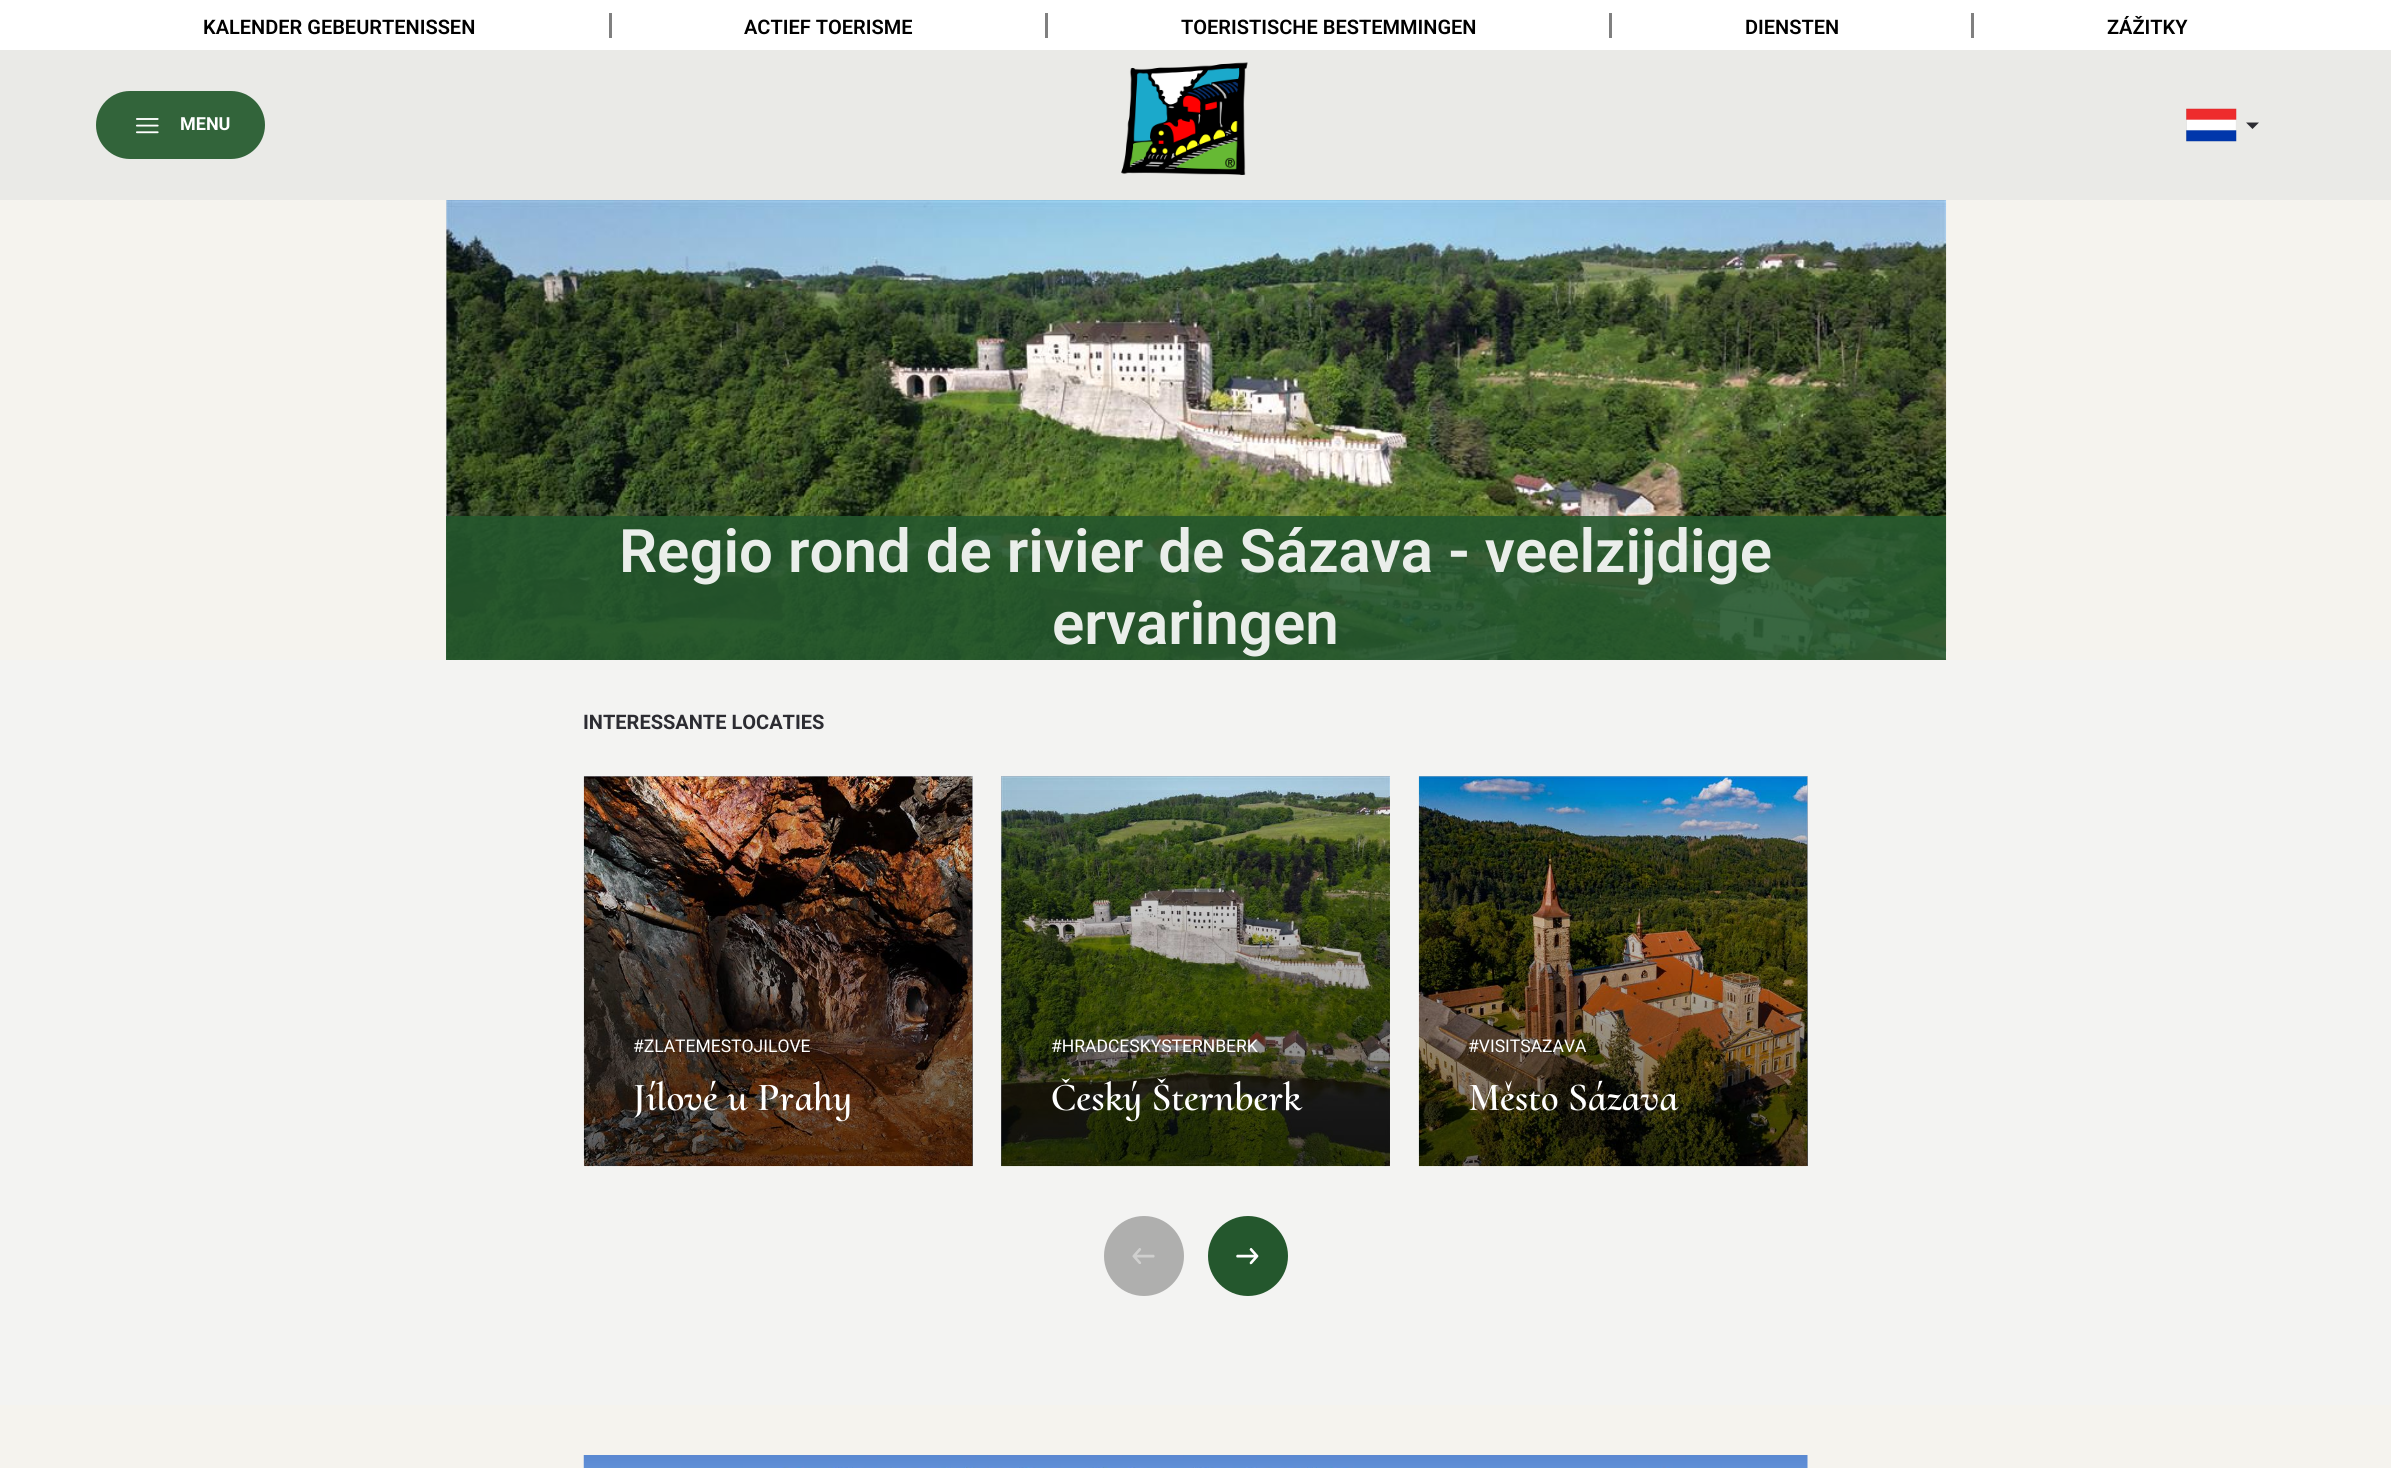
import math
import cairo

surface = cairo.ImageSurface(cairo.FORMAT_RGB24, 2391, 1468)
cr = cairo.Context(surface)
options = cairo.FontOptions()
options.set_hint_metrics(cairo.HINT_METRICS_OFF)
options.set_hint_style(cairo.HINT_STYLE_NONE)
cr.set_font_options(options)
cr.set_miter_limit(4)


def rgb(code):
    cr.set_source_rgb(*(v / 255 for v in bytes.fromhex(code[-6:])))


def rrect(x, y, w, h, r):
    cr.new_sub_path()
    for i, (u, v) in enumerate([(x + w - r, y + h - r), (x + r, y + h - r), (x + r, y + r), (x + w - r, y + r)]):
        cr.arc(u, v, r, i * math.pi / 2, (i + 1) * math.pi / 2)
    cr.close_path()


def image(path, x, y, w, h):
    cr.save()
    cr.set_source_surface(cairo.ImageSurface.create_from_png(path), x, y)
    cr.rectangle(x, y, w, h)
    cr.fill()
    cr.restore()


rgb("#f5f3ee")
cr.paint()
for x, y, w, h, color in [
    (0, 50, 2391, 150, "#eaeae7"),
    (0, 0, 2391, 50, "#ffffff"),
    (609, 13, 3, 25, "#808080"),
    (1045, 13, 3, 25, "#808080"),
    (1609, 13, 3, 25, "#808080"),
    (1971, 13, 3, 25, "#808080"),
]:
    rgb(color)
    cr.rectangle(x, y, w, h)
    cr.fill()
rgb("#32643a")
rrect(96, 91, 169, 68, 34)
cr.fill()
image("img/1.png", 136, 118, 23, 16)
image("img/2.png", 1121, 62, 127, 113)
image("img/3.png", 2186, 108, 51, 34)
rgb("#2c2c32")
cr.new_path()
cr.move_to(2246, 122.5)
cr.line_to(2259, 122.5)
cr.line_to(2252.5, 129)
cr.close_path()
cr.fill()
rgb("#d3d3d3")
cr.rectangle(446, 200, 1, 460)
cr.fill()
image("img/4.png", 446, 200, 1501, 460)
cr.set_source_rgba(0.141, 0.341, 0.176, 0.9)
cr.rectangle(446, 516, 1500, 144)
cr.fill()
rgb("#f3f3f2")
cr.rectangle(0, 660, 2391, 745)
cr.fill()
rgb("#b2b6c0")
cr.rectangle(584, 776, 389, 390)
cr.fill()
image("img/5.png", 583, 776, 390, 391)
gradient = cairo.LinearGradient(778, 776, 778, 1166)
gradient.add_color_stop_rgba(0, 0, 0, 0, 0)
gradient.add_color_stop_rgba(0.65, 0, 0, 0, 0.4)
gradient.add_color_stop_rgba(1, 0, 0, 0, 0.6)
cr.set_source(gradient)
cr.rectangle(584, 790, 389, 376)
cr.fill()
rgb("#b2b6c0")
cr.rectangle(1001, 776, 389, 390)
cr.fill()
image("img/6.png", 1001, 776, 389, 391)
gradient = cairo.LinearGradient(1196, 776, 1196, 1166)
gradient.add_color_stop_rgba(0, 0, 0, 0, 0)
gradient.add_color_stop_rgba(0.65, 0, 0, 0, 0.4)
gradient.add_color_stop_rgba(1, 0, 0, 0, 0.6)
cr.set_source(gradient)
cr.rectangle(1001, 790, 389, 376)
cr.fill()
rgb("#b2b6c0")
cr.rectangle(1419, 776, 389, 390)
cr.fill()
image("img/7.png", 1418, 776, 390, 391)
gradient = cairo.LinearGradient(1613, 776, 1613, 1166)
gradient.add_color_stop_rgba(0, 0, 0, 0, 0)
gradient.add_color_stop_rgba(0.65, 0, 0, 0, 0.4)
gradient.add_color_stop_rgba(1, 0, 0, 0, 0.6)
cr.set_source(gradient)
cr.rectangle(1419, 790, 389, 376)
cr.fill()
rgb("#afafae")
cr.arc(1144, 1256, 40, 0, 2 * math.pi)
cr.fill()
image("img/8.png", 1132, 1248, 23, 16)
rgb("#24572d")
cr.arc(1248, 1256, 40, 0, 2 * math.pi)
cr.fill()
image("img/9.png", 1236, 1248, 23, 17)
image("img/10.png", 583, 1455, 1225, 13)
cr.select_font_face("Roboto SemiBold")
cr.set_font_size(20)
rgb("#000000")
for x, y, s in [
    (203, 34, "KALENDER GEBEURTENISSEN"),
    (744, 34, "ACTIEF TOERISME"),
    (1181, 34, "TOERISTISCHE BESTEMMINGEN"),
    (1745, 34, "DIENSTEN"),
    (2107, 34, "ZÁŽITKY"),
]:
    cr.move_to(x, y)
    cr.show_text(s)
cr.select_font_face("Roboto", cairo.FONT_SLANT_NORMAL, cairo.FONT_WEIGHT_BOLD)
cr.set_font_size(18)
rgb("#ffffff")
cr.move_to(180, 130)
cr.show_text("MENU")
cr.select_font_face("Roboto SemiBold")
cr.set_font_size(60)
rgb("#eaeeea")
cr.move_to(619, 572)
cr.show_text("Regio rond de rivier de Sázava - veelzijdige")
cr.move_to(1052, 644)
cr.show_text("ervaringen")
cr.select_font_face("Roboto", cairo.FONT_SLANT_NORMAL, cairo.FONT_WEIGHT_BOLD)
cr.set_font_size(20)
rgb("#2c2c32")
cr.move_to(583, 729)
cr.show_text("INTERESSANTE LOCATIES")
cr.select_font_face("Roboto")
cr.set_font_size(17.5)
rgb("#ffffff")
cr.move_to(633, 1052)
cr.show_text("#ZLATEMESTOJILOVE")
cr.select_font_face("Cormorant Upright SemiBold")
cr.set_font_size(40)
cr.move_to(633, 1110)
cr.show_text("Jílové u Prahy")
cr.select_font_face("Roboto")
cr.set_font_size(17.5)
cr.move_to(1051, 1052)
cr.show_text("#HRADCESKYSTERNBERK")
cr.select_font_face("Cormorant Upright SemiBold")
cr.set_font_size(40)
cr.move_to(1051, 1110)
cr.show_text("Český Šternberk")
cr.select_font_face("Roboto")
cr.set_font_size(17.5)
cr.move_to(1468, 1052)
cr.show_text("#VISITSAZAVA")
cr.select_font_face("Cormorant Upright SemiBold")
cr.set_font_size(40)
cr.move_to(1468, 1110)
cr.show_text("Město Sázava")
surface.write_to_png("page.png")
